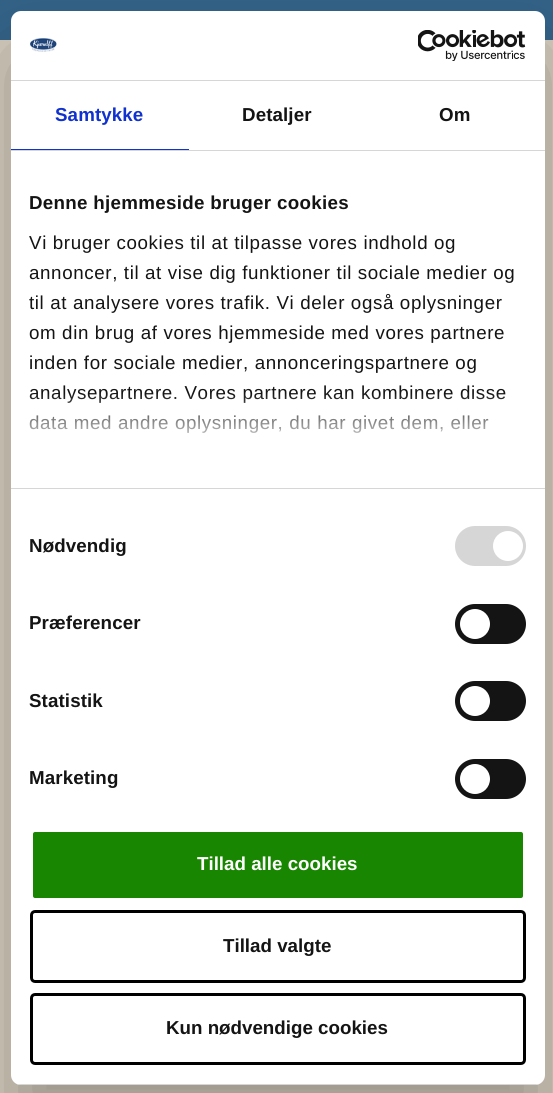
import math
import cairo

surface = cairo.ImageSurface(cairo.FORMAT_RGB24, 553, 1093)
cr = cairo.Context(surface)
options = cairo.FontOptions()
options.set_hint_metrics(cairo.HINT_METRICS_OFF)
options.set_hint_style(cairo.HINT_STYLE_NONE)
cr.set_font_options(options)
cr.set_miter_limit(4)


def rgb(code):
    cr.set_source_rgb(*(v / 255 for v in bytes.fromhex(code[-6:])))


def tracked(x, y, s, letter, word):
    cr.move_to(x, y)
    for ch in s:
        cr.show_text(ch)
        cr.rel_move_to(letter + word * (ch == ' '), 0)


def rrect(x, y, w, h, r):
    cr.new_sub_path()
    for i, (u, v) in enumerate([(x + w - r, y + h - r), (x + r, y + h - r), (x + r, y + r), (x + w - r, y + r)]):
        cr.arc(u, v, r, i * math.pi / 2, (i + 1) * math.pi / 2)
    cr.close_path()


def soft_shadow(x, y, w, h, r, blur, alpha):
    cr.push_group_with_content(cairo.CONTENT_ALPHA)
    cr.set_operator(cairo.OPERATOR_SOURCE)
    for i in range(15, -16, -2):
        e = blur * i / 6
        if min(w, h) + 2 * e > 0:
            cr.set_source_rgba(0, 0, 0, alpha * math.erfc((i - 1) / 8.5) / 2)
            rrect(x - e, y - e, w + 2 * e, h + 2 * e, max(0, min(r + e + blur * .6, min(w, h) / 2 + e)))
            cr.fill()
    cr.mask(cr.pop_group())


def image(path, x, y, w, h):
    cr.save()
    cr.set_source_surface(cairo.ImageSurface.create_from_png(path), x, y)
    cr.rectangle(x, y, w, h)
    cr.fill()
    cr.restore()


rgb("#d8d0c1")
cr.paint()
rgb("#34648a")
cr.rectangle(0, 0, 553, 40)
cr.fill()
rgb("#000000")
soft_shadow(11, 51, 534, 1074, 10, 42.5, 0.3)
rgb("#ffffff")
rrect(11, 11, 534, 1074, 10)
cr.fill()
rgb("#d6d6d6")
cr.rectangle(11, 80, 534, 1)
cr.fill()
image("img/1.png", 30, 38, 27, 14)
image("img/2.png", 418, 30, 108, 31)
for x, y, w, h, color in [
    (11, 150, 534, 1, "#d6d6d6"),
    (11, 149, 178, 1, "#1032cf"),
    (11, 488, 534, 1, "#d6d6d6"),
]:
    rgb(color)
    cr.rectangle(x, y, w, h)
    cr.fill()
rrect(455, 526, 71, 40, 20)
cr.fill()
rgb("#ffffff")
cr.arc(508, 546, 15, 0, 2 * math.pi)
cr.fill()
rgb("#141414")
rrect(455, 604, 71, 40, 20)
cr.fill()
rgb("#ffffff")
cr.arc(475, 624, 15, 0, 2 * math.pi)
cr.fill()
rgb("#141414")
rrect(455, 681, 71, 40, 20)
cr.fill()
rgb("#ffffff")
cr.arc(475, 701, 15, 0, 2 * math.pi)
cr.fill()
rgb("#141414")
rrect(455, 759, 71, 40, 20)
cr.fill()
rgb("#ffffff")
cr.arc(475, 779, 15, 0, 2 * math.pi)
cr.fill()
cr.save()
rrect(11, 11, 534, 1074, 10)
cr.clip()
rgb("#d6d6d6")
cr.rectangle(11, 1084, 534, 1)
cr.fill()
cr.restore()
rgb("#188600")
rrect(31.5, 830.5, 493, 69, 3.5)
cr.fill_preserve()
rgb("#ffffff")
cr.set_line_width(3)
cr.stroke()
rrect(31.5, 911.5, 493, 70, 3.5)
rgb("#000000")
cr.stroke()
rrect(31.5, 994.5, 493, 69, 3.5)
cr.stroke()
cr.select_font_face("Liberation Sans", cairo.FONT_SLANT_NORMAL, cairo.FONT_WEIGHT_BOLD)
cr.set_font_size(18.75)
rgb("#1032cf")
tracked(55, 121, "Samtykke", 0.1, 0)
rgb("#141414")
tracked(242, 121, "Detaljer", 0.1, 0)
tracked(439, 121, "Om", 0.1, 0)
tracked(29, 209, "Denne hjemmeside bruger cookies", 0.3, 0)
cr.select_font_face("Liberation Sans")
for x, y, s in [
    (29, 249, "Vi bruger cookies til at tilpasse vores indhold og"),
    (29, 279, "annoncer, til at vise dig funktioner til sociale medier og"),
    (29, 309, "til at analysere vores trafik. Vi deler også oplysninger"),
    (29, 339, "om din brug af vores hjemmeside med vores partnere"),
    (29, 369, "inden for sociale medier, annonceringspartnere og"),
    (29, 399, "analysepartnere. Vores partnere kan kombinere disse"),
    (29, 429, "data med andre oplysninger, du har givet dem, eller"),
]:
    tracked(x, y, s, 0.62, 0)
gradient = cairo.LinearGradient(269, 487, 269, 393)
gradient.add_color_stop_rgba(0, 1, 1, 1, 1)
gradient.add_color_stop_rgba(0.5, 1, 1, 1, 0.8)
gradient.add_color_stop_rgba(1, 1, 1, 1, 0)
cr.set_source(gradient)
cr.rectangle(29, 394, 476, 39)
cr.fill()
cr.select_font_face("Liberation Sans", cairo.FONT_SLANT_NORMAL, cairo.FONT_WEIGHT_BOLD)
rgb("#141414")
for x, y, s in [
    (29, 552, "Nødvendig"),
    (29, 629, "Præferencer"),
    (29, 707, "Statistik"),
    (29, 784, "Marketing"),
]:
    tracked(x, y, s, 0.1, 0)
rgb("#ffffff")
cr.move_to(197, 870)
cr.show_text("Tillad alle cookies")
rgb("#141414")
cr.move_to(223, 952)
cr.show_text("Tillad valgte")
cr.move_to(166, 1034)
cr.show_text("Kun nødvendige cookies")
surface.write_to_png("page.png")
